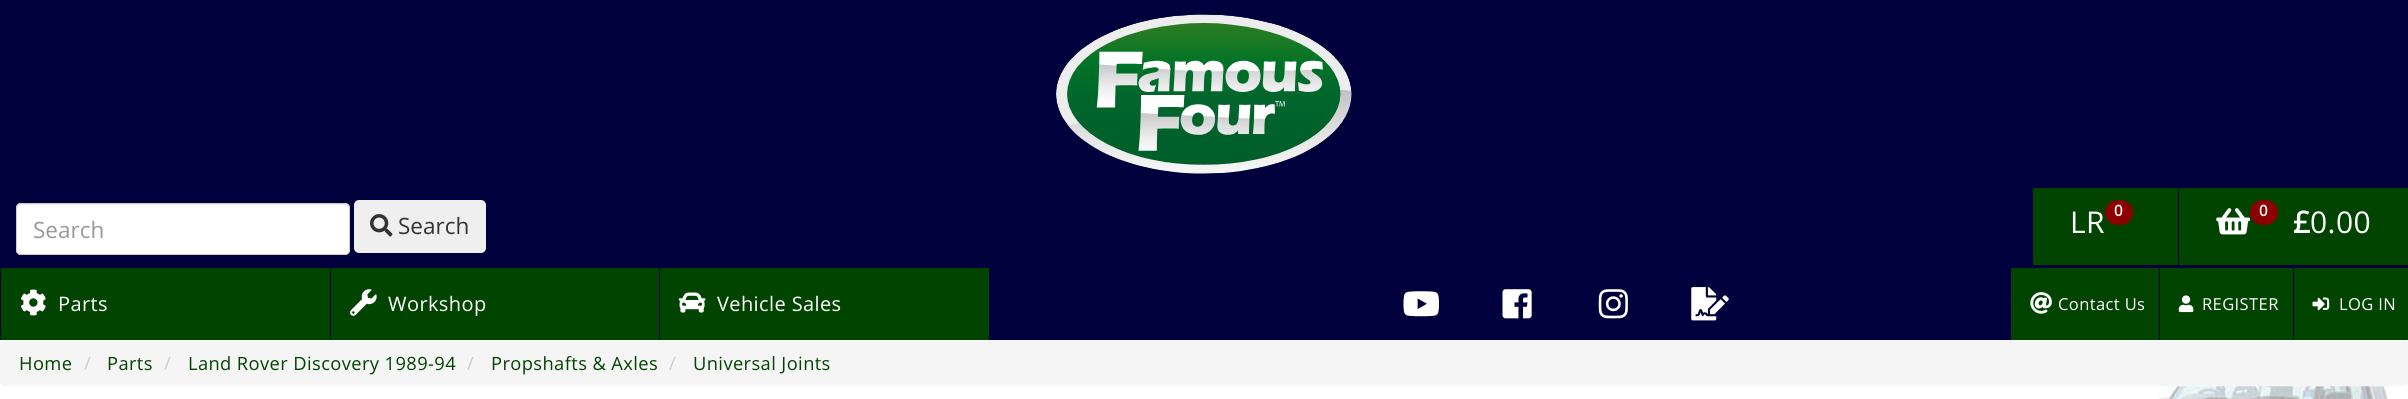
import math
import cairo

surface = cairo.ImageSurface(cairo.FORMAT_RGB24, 2408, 399)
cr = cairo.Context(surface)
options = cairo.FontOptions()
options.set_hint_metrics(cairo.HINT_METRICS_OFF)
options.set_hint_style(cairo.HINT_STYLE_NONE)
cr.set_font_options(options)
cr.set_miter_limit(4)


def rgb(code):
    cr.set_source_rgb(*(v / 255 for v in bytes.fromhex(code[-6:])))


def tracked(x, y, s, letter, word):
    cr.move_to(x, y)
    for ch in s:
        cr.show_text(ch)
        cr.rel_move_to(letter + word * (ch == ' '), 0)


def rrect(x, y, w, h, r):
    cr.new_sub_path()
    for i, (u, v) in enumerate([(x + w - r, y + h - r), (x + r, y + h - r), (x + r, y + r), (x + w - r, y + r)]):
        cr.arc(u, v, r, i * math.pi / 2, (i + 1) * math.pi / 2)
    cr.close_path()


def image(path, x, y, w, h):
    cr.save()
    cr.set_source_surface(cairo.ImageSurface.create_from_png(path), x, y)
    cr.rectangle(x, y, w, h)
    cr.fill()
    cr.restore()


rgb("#ffffff")
cr.paint()
rgb("#00003c")
cr.rectangle(0, 0, 2408, 340)
cr.fill()
image("img/1.png", 1056, 14, 296, 160)
rgb("#ffffff")
rrect(16, 203, 334, 52, 5)
cr.fill()
rgb("#ececec")
cr.new_path()
cr.move_to(21, 205)
cr.line_to(345, 205)
cr.curve_to(347, 205, 349, 207, 349, 209)
cr.line_to(349, 208)
cr.curve_to(349, 206, 347, 204, 345, 204)
cr.line_to(22, 204)
cr.curve_to(20, 204, 18, 206, 18, 208)
cr.line_to(18, 209)
cr.curve_to(18, 207, 19, 205, 21, 205)
cr.close_path()
cr.fill()
rrect(16.5, 203.5, 333, 51, 4.5)
rgb("#cccccc")
cr.set_line_width(1)
cr.stroke()
rgb("#efefef")
rrect(354, 200, 132, 53, 5)
cr.fill()
image("img/2.png", 370, 214, 23, 23)
rgb("#004400")
cr.rectangle(2033, 188, 145, 77)
cr.fill()
rgb("#8b0000")
rrect(2105, 200, 28, 25, 12.5)
cr.fill()
rgb("#004400")
cr.rectangle(2179, 188, 229, 77)
cr.fill()
image("img/3.png", 2216, 208, 34, 27)
rgb("#8b0000")
rrect(2250, 200, 28, 25, 12.5)
cr.fill()
rgb("#004400")
cr.rectangle(1, 268, 329, 72)
cr.fill()
image("img/4.png", 21, 289, 25, 27)
cr.rectangle(331, 268, 328, 72)
cr.fill()
image("img/5.png", 350, 289, 27, 27)
cr.rectangle(660, 268, 329, 72)
cr.fill()
image("img/6.png", 678, 292, 28, 21)
image("img/7.png", 1403, 291, 36, 26)
image("img/8.png", 1502, 289, 30, 30)
image("img/9.png", 1598, 289, 30, 30)
image("img/10.png", 1691, 287, 38, 34)
cr.rectangle(2011, 268, 148, 72)
cr.fill()
image("img/11.png", 2030, 292, 22, 22)
cr.rectangle(2160, 268, 133, 72)
cr.fill()
image("img/12.png", 2178, 295, 16, 18)
cr.rectangle(2294, 268, 114, 72)
cr.fill()
image("img/13.png", 2312, 297, 18, 14)
rgb("#f5f5f5")
rrect(0, 340, 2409, 46, 5)
cr.fill()
image("img/14.png", 2159, 386, 229, 13)
cr.select_font_face("Open Sans")
cr.set_font_size(22.5)
rgb("#999999")
cr.move_to(33, 238)
cr.show_text("Search")
rgb("#333333")
cr.move_to(398, 234)
cr.show_text("Search")
cr.set_font_size(30)
rgb("#ffffff")
tracked(2070, 233, "LR", 0.4, 0)
cr.select_font_face("Open Sans", cairo.FONT_SLANT_NORMAL, cairo.FONT_WEIGHT_BOLD)
cr.set_font_size(15)
tracked(2114, 216, "0", 0.4, 0)
tracked(2259, 216, "0", 0.4, 0)
cr.set_font_size(30)
tracked(2293, 233, "£", 0.4, 0)
cr.select_font_face("Open Sans")
tracked(2310, 233, "0.00", 0.4, 0)
cr.set_font_size(20)
for x, y, s in [
    (58, 311, "Parts"),
    (388, 311, "Workshop"),
    (717, 311, "Vehicle Sales"),
]:
    tracked(x, y, s, 0.4, 0)
cr.set_font_size(16.5)
for x, y, s in [
    (2058, 310, "Contact Us"),
    (2202, 310, "REGISTER"),
    (2339, 310, "LOG IN"),
]:
    tracked(x, y, s, 0.4, 0)
cr.set_font_size(18.3)
rgb("#004400")
tracked(19, 370, "Home", 0.4, 0)
rgb("#cccccc")
tracked(84, 370, "/", 0.4, 0)
rgb("#004400")
tracked(107, 370, "Parts", 0.4, 0)
rgb("#cccccc")
tracked(164, 370, "/", 0.4, 0)
rgb("#004400")
tracked(188, 370, "Land Rover Discovery 1989-94", 0.4, 0)
rgb("#cccccc")
tracked(467, 370, "/", 0.4, 0)
rgb("#004400")
tracked(491, 370, "Propshafts & Axles", 0.4, 0)
rgb("#cccccc")
tracked(669, 370, "/", 0.4, 0)
rgb("#004400")
tracked(693, 370, "Universal Joints", 0.4, 0)
surface.write_to_png("page.png")
